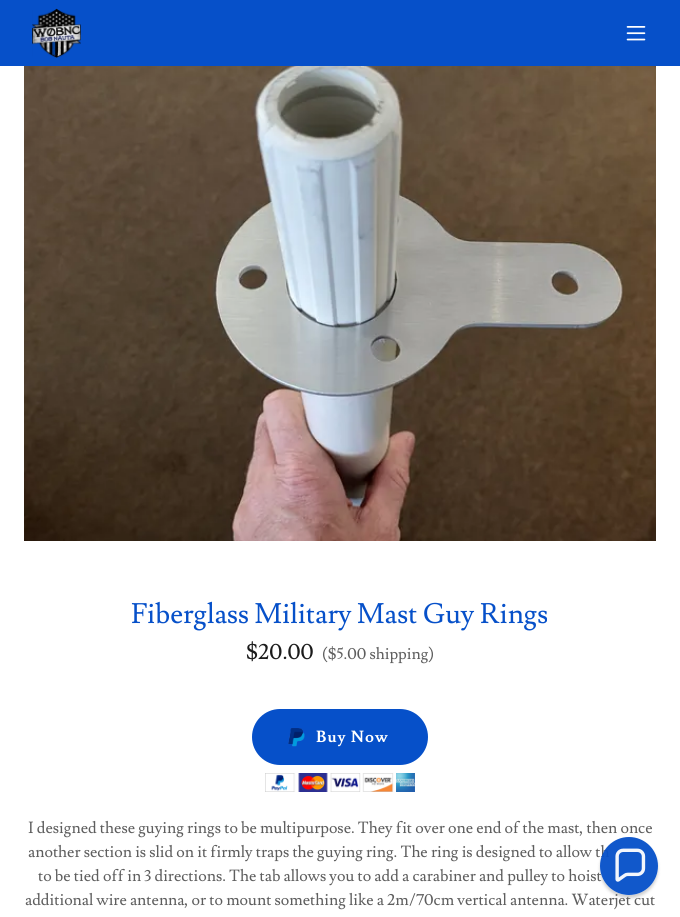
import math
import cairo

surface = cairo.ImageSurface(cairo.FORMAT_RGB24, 680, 917)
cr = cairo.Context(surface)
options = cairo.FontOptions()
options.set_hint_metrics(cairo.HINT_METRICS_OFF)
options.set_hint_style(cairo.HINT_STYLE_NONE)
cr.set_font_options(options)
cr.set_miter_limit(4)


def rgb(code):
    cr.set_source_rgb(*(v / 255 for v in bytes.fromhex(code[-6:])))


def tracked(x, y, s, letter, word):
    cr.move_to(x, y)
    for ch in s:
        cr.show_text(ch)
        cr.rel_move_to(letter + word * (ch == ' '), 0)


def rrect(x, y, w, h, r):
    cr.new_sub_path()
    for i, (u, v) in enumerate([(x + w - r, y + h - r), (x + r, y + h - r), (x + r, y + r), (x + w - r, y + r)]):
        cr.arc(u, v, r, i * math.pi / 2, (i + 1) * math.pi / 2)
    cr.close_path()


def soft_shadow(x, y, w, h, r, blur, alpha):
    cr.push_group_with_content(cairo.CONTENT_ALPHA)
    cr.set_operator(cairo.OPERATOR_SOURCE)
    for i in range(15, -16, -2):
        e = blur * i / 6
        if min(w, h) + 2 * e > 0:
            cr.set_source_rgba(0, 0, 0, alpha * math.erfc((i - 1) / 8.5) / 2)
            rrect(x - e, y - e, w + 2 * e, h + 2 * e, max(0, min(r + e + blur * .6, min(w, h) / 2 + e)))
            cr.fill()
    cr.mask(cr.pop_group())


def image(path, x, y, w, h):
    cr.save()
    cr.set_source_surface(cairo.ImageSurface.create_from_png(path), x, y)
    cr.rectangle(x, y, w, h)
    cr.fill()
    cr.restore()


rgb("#ffffff")
cr.paint()
rgb("#0650c9")
cr.rectangle(0, 0, 680, 66)
cr.fill()
image("img/1.png", 32, 8, 49, 50)
image("img/2.png", 626, 26, 20, 15)
image("img/3.png", 24, 66, 632, 475)
rrect(252, 709, 176, 56, 28)
cr.fill()
image("img/4.png", 288, 728, 17, 19)
image("img/5.png", 265, 773, 150, 19)
cr.save()
cr.set_fill_rule(cairo.FILL_RULE_EVEN_ODD)
cr.new_path()
cr.move_to(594, 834)
cr.line_to(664, 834)
cr.line_to(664, 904)
cr.line_to(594, 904)
cr.close_path()
cr.move_to(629, 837)
cr.curve_to(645, 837, 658, 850, 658, 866)
cr.curve_to(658, 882, 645, 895, 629, 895)
cr.curve_to(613, 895, 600, 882, 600, 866)
cr.curve_to(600, 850, 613, 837, 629, 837)
cr.close_path()
cr.clip()
rgb("#000000")
soft_shadow(600, 840, 58, 58, 29, 1.5, 0.19)
cr.restore()
cr.select_font_face("Lusitana")
cr.set_font_size(28)
cr.move_to(131, 623)
cr.show_text("Fiberglass Military Mast Guy Rings")
cr.set_font_size(22)
rgb("#1b1b1b")
cr.move_to(246, 659)
cr.show_text("$20.00")
cr.set_font_size(16)
rgb("#5e5e5e")
cr.move_to(322, 659)
cr.show_text("($5.00 shipping)")
cr.select_font_face("Lusitana", cairo.FONT_SLANT_NORMAL, cairo.FONT_WEIGHT_BOLD)
rgb("#ffffff")
tracked(316, 742, "Buy Now", 1, 0)
cr.select_font_face("Lusitana")
rgb("#5e5e5e")
for x, y, s in [
    (28, 833, "I designed these guying rings to be multipurpose. They fit over one end of the mast, then once"),
    (28, 857, "another section is slid on it firmly traps the guying ring. The ring is designed to allow th"),
    (38, 881, "to be tied off in 3 directions. The tab allows you to add a carabiner and pulley to hoist"),
    (25, 905, "additional wire antenna, or to mount something like a 2m/70cm vertical antenna. Waterjet cut"),
]:
    cr.move_to(x, y)
    cr.show_text(s)
cr.set_source_rgba(0.024, 0.314, 0.788, 0.95)
cr.new_path()
cr.arc(629, 866, 29, 0, 2 * math.pi)
cr.fill()
image("img/6.png", 615, 848, 31, 34)
surface.write_to_png("page.png")
